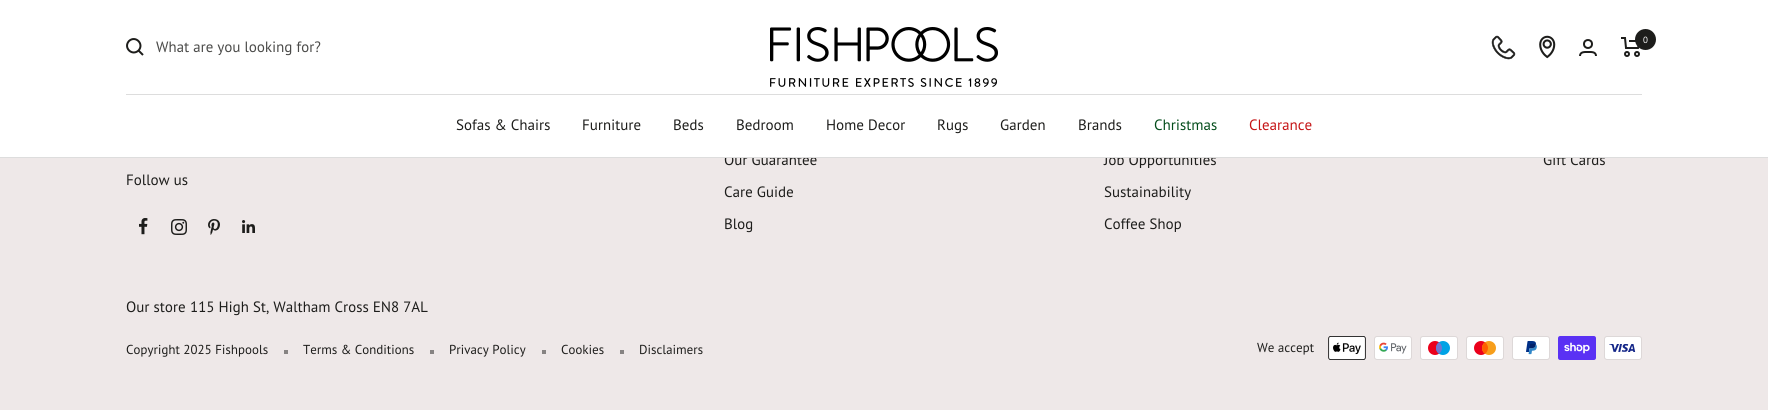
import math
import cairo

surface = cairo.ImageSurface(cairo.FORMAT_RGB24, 1768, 410)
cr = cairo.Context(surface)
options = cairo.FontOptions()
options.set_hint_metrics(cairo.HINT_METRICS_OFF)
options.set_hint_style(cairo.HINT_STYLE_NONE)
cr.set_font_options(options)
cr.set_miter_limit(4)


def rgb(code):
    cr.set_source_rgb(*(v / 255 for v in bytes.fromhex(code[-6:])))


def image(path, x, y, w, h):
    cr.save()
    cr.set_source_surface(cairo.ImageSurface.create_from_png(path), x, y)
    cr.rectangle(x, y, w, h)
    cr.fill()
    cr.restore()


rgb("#eee8e8")
cr.paint()
rgb("#dddddd")
cr.rectangle(0, 157, 1768, 1)
cr.fill()
rgb("#ffffff")
cr.rectangle(0, 0, 1768, 157)
cr.fill()
cr.new_path()
cr.move_to(138.5, 50.5)
cr.curve_to(144.5, 44, 135.5, 35, 129, 41)
cr.curve_to(123, 47.5, 132, 56.5, 138.5, 50.5)
cr.close_path()
cr.move_to(138.5, 50.5)
cr.line_to(143, 55)
rgb("#1d1d1b")
cr.stroke()
image("img/1.png", 156, 41, 165, 15)
image("img/2.png", 770, 27, 228, 60)
image("img/3.png", 1491, 35, 25, 25)
image("img/4.png", 1539, 35, 17, 24)
cr.arc(1588, 44, 4, 0, 2 * math.pi)
cr.stroke()
cr.new_path()
cr.move_to(1580, 56)
cr.curve_to(1580, 51.5, 1585, 52, 1588, 52)
cr.curve_to(1591, 52, 1596, 51.5, 1596, 56)
cr.move_to(1621, 38)
cr.line_to(1625, 38)
cr.line_to(1626, 48)
cr.line_to(1638, 48)
cr.line_to(1640, 41)
cr.line_to(1629, 41)
cr.stroke()
cr.arc(1645.5, 39.5, 10.5, 0, 2 * math.pi)
cr.fill()
image("img/5.png", 1643, 36, 5, 8)
cr.arc(1627, 54, 2, 0, 2 * math.pi)
cr.stroke()
cr.arc(1637, 54, 2, 0, 2 * math.pi)
cr.stroke()
rgb("#dddddd")
cr.rectangle(126, 94, 1516, 1)
cr.fill()
image("img/6.png", 456, 119, 94, 12)
image("img/7.png", 583, 119, 58, 12)
image("img/8.png", 674, 119, 30, 12)
image("img/9.png", 737, 119, 56, 12)
image("img/10.png", 827, 119, 79, 12)
image("img/11.png", 938, 119, 30, 15)
image("img/12.png", 1000, 119, 45, 12)
image("img/13.png", 1079, 119, 43, 12)
image("img/14.png", 1154, 119, 63, 12)
image("img/15.png", 1249, 119, 63, 12)
image("img/16.png", 724, 158, 93, 8)
image("img/17.png", 724, 186, 69, 12)
image("img/18.png", 725, 218, 28, 15)
image("img/19.png", 1103, 158, 113, 10)
image("img/20.png", 1104, 186, 87, 15)
image("img/21.png", 1104, 218, 77, 14)
image("img/22.png", 1543, 158, 62, 8)
image("img/23.png", 127, 174, 61, 12)
image("img/24.png", 139, 218, 9, 17)
image("img/25.png", 171, 219, 16, 16)
image("img/26.png", 208, 219, 12, 16)
image("img/27.png", 242, 220, 13, 13)
image("img/28.png", 126, 301, 59, 12)
image("img/29.png", 191, 301, 237, 15)
image("img/30.png", 126, 344, 142, 13)
rgb("#868382")
cr.rectangle(284, 350, 4, 4)
cr.fill()
image("img/31.png", 303, 344, 111, 11)
cr.rectangle(430, 350, 4, 4)
cr.fill()
image("img/32.png", 450, 344, 76, 13)
cr.rectangle(542, 350, 4, 4)
cr.fill()
image("img/33.png", 561, 344, 43, 11)
cr.rectangle(620, 350, 4, 4)
cr.fill()
image("img/34.png", 640, 344, 63, 11)
image("img/35.png", 1257, 342, 57, 13)
image("img/36.png", 1328, 336, 38, 24)
image("img/37.png", 1374, 336, 38, 24)
image("img/38.png", 1420, 336, 38, 24)
image("img/39.png", 1466, 336, 38, 24)
image("img/40.png", 1512, 336, 38, 24)
image("img/41.png", 1558, 336, 38, 24)
image("img/42.png", 1604, 336, 38, 24)
surface.write_to_png("page.png")
